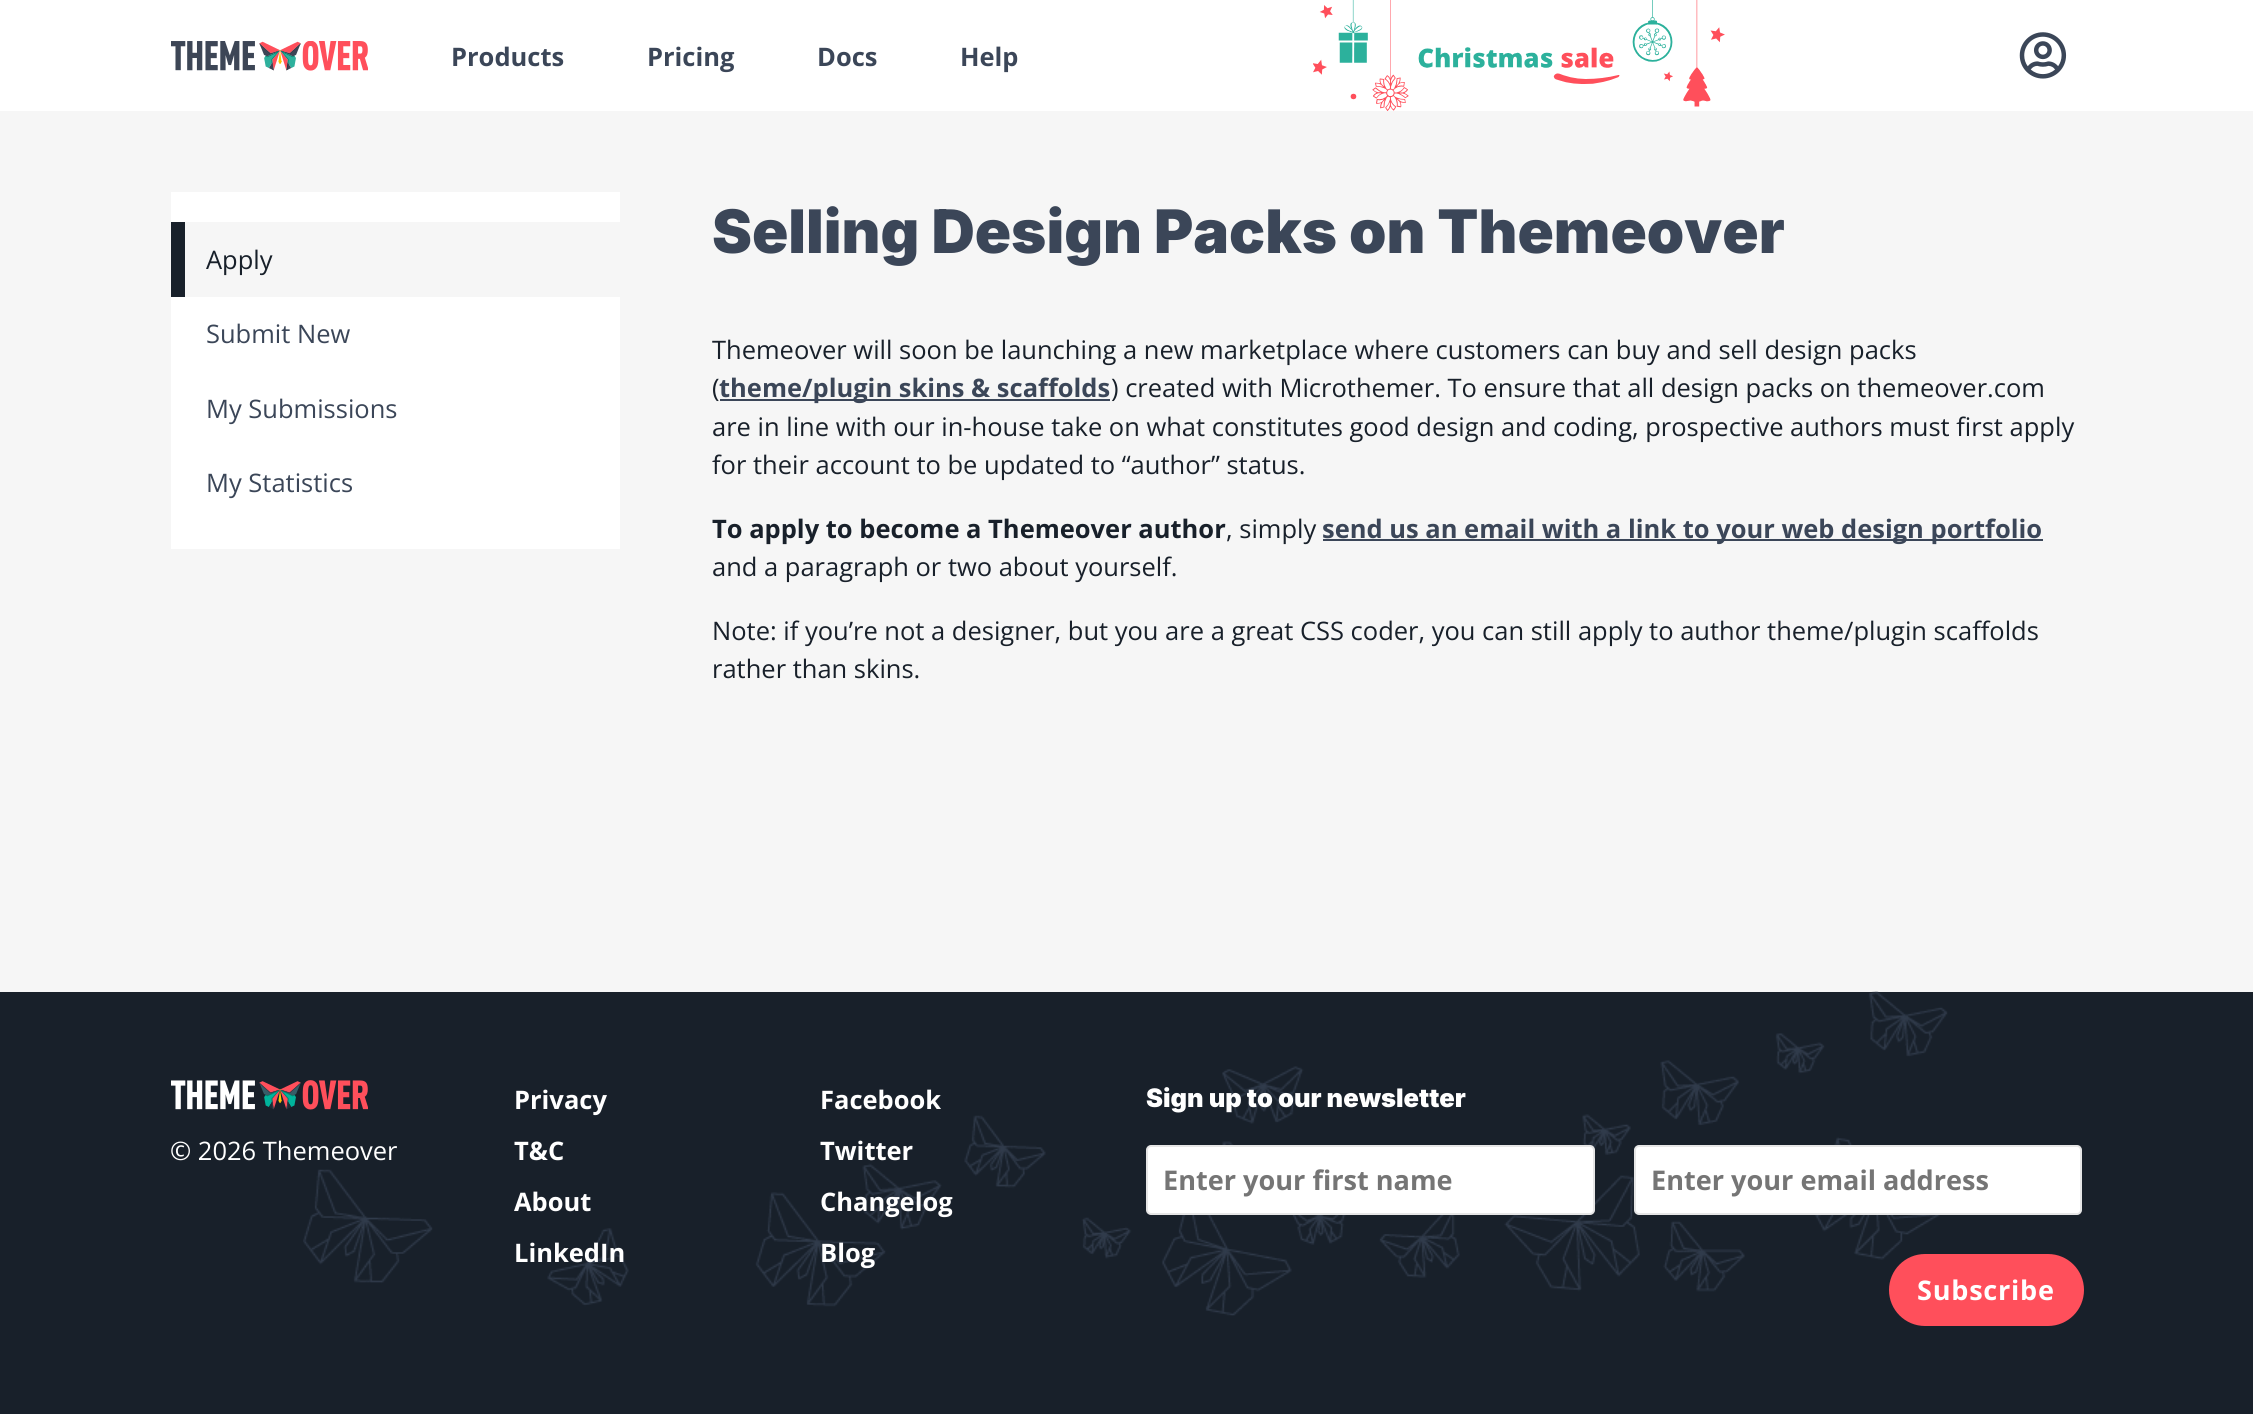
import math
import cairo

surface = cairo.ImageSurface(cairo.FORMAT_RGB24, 2253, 1414)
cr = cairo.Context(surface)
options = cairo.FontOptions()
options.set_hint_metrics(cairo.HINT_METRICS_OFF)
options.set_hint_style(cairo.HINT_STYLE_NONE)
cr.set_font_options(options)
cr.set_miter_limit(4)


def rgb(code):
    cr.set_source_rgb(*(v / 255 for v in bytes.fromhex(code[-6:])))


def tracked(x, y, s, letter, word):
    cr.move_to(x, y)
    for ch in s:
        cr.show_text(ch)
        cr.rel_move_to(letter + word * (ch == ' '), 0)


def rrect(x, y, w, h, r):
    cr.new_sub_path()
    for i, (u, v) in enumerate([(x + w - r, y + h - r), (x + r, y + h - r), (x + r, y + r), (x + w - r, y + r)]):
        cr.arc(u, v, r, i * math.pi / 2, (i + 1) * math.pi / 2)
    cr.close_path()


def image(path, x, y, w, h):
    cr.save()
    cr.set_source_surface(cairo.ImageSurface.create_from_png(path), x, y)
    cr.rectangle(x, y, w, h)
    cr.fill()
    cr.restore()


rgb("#f6f6f6")
cr.paint()
rgb("#ffffff")
cr.rectangle(0, 0, 2253, 111)
cr.fill()
image("img/1.png", 171, 41, 197, 30)
image("img/2.png", 1313, 0, 412, 111)
image("img/3.png", 2019, 32, 48, 47)
for x, y, w, h, color in [
    (171, 192, 449, 357, "#ffffff"),
    (185, 222, 435, 75, "#f6f6f6"),
    (171, 222, 14, 75, "#18202a"),
    (720, 399, 390, 2, "#3b4658"),
    (1323, 539, 720, 2, "#3b4658"),
    (0, 992, 2253, 422, "#18202a"),
]:
    rgb(color)
    cr.rectangle(x, y, w, h)
    cr.fill()
image("img/4.png", 303, 991, 1645, 325)
image("img/5.png", 171, 1080, 197, 30)
rgb("#ffffff")
rrect(1147, 1146, 447, 68, 4)
cr.fill_preserve()
rgb("#e6e6e6")
cr.stroke()
rgb("#ffffff")
rrect(1635, 1146, 446, 68, 4)
cr.fill_preserve()
rgb("#e6e6e6")
cr.stroke()
rgb("#ff4f5b")
rrect(1889, 1254, 195, 72, 36)
cr.fill()
cr.select_font_face("Open Sans", cairo.FONT_SLANT_NORMAL, cairo.FONT_WEIGHT_BOLD)
cr.set_font_size(25.5)
rgb("#3b4658")
for x, y, s in [
    (451, 66, "Products"),
    (647, 66, "Pricing"),
    (817, 66, "Docs"),
    (960, 66, "Help"),
]:
    cr.move_to(x, y)
    cr.show_text(s)
cr.select_font_face("Open Sans")
rgb("#18202a")
cr.move_to(206, 269)
cr.show_text("Apply")
rgb("#3b4658")
for x, y, s in [
    (206, 343, "Submit New"),
    (206, 418, "My Submissions"),
    (206, 492, "My Statistics"),
]:
    cr.move_to(x, y)
    cr.show_text(s)
cr.select_font_face("Inter Black")
cr.set_font_size(60)
cr.move_to(712, 253)
cr.show_text("Selling Design Packs on Themeover")
cr.select_font_face("Open Sans")
cr.set_font_size(25.5)
rgb("#18202a")
cr.move_to(712, 359)
cr.show_text("Themeover will soon be launching a new marketplace where customers can buy and sell design packs")
cr.move_to(712, 397)
cr.show_text("(")
cr.select_font_face("Open Sans", cairo.FONT_SLANT_NORMAL, cairo.FONT_WEIGHT_BOLD)
rgb("#3b4658")
cr.move_to(719, 397)
cr.show_text("theme/plugin skins & scaffolds")
cr.select_font_face("Open Sans")
rgb("#18202a")
for x, y, s in [
    (1111, 397, ") created with Microthemer. To ensure that all design packs on themeover.com"),
    (712, 436, "are in line with our in-house take on what constitutes good design and coding, prospective authors must first apply"),
    (712, 474, "for their account to be updated to “author” status."),
]:
    cr.move_to(x, y)
    cr.show_text(s)
cr.select_font_face("Open Sans", cairo.FONT_SLANT_NORMAL, cairo.FONT_WEIGHT_BOLD)
cr.move_to(712, 538)
cr.show_text("To apply to become a Themeover author")
cr.select_font_face("Open Sans")
cr.move_to(1226, 538)
cr.show_text(", simply")
cr.select_font_face("Open Sans", cairo.FONT_SLANT_NORMAL, cairo.FONT_WEIGHT_BOLD)
rgb("#3b4658")
cr.move_to(1322, 538)
cr.show_text("send us an email with a link to your web design portfolio")
cr.select_font_face("Open Sans")
rgb("#18202a")
for x, y, s in [
    (712, 576, "and a paragraph or two about yourself."),
    (712, 640, "Note: if you’re not a designer, but you are a great CSS coder, you can still apply to author theme/plugin scaffolds"),
    (712, 678, "rather than skins."),
]:
    cr.move_to(x, y)
    cr.show_text(s)
rgb("#ffffff")
cr.move_to(170, 1160)
cr.show_text("© 2026 Themeover")
cr.select_font_face("Open Sans", cairo.FONT_SLANT_NORMAL, cairo.FONT_WEIGHT_BOLD)
for x, y, s in [
    (514, 1109, "Privacy"),
    (820, 1109, "Facebook"),
    (514, 1160, "T&C"),
    (820, 1160, "Twitter"),
    (514, 1211, "About"),
    (820, 1211, "Changelog"),
    (514, 1262, "LinkedIn"),
    (820, 1262, "Blog"),
]:
    cr.move_to(x, y)
    cr.show_text(s)
cr.select_font_face("Inter Black")
cr.move_to(1146, 1107)
cr.show_text("Sign up to our newsletter")
cr.select_font_face("Open Sans", cairo.FONT_SLANT_NORMAL, cairo.FONT_WEIGHT_BOLD)
cr.set_font_size(27.1)
rgb("#757575")
cr.move_to(1163, 1190)
cr.show_text("Enter your first name")
cr.move_to(1651, 1190)
cr.show_text("Enter your email address")
rgb("#ffffff")
tracked(1917, 1300, "Subscribe", 0.75, 0)
surface.write_to_png("page.png")
